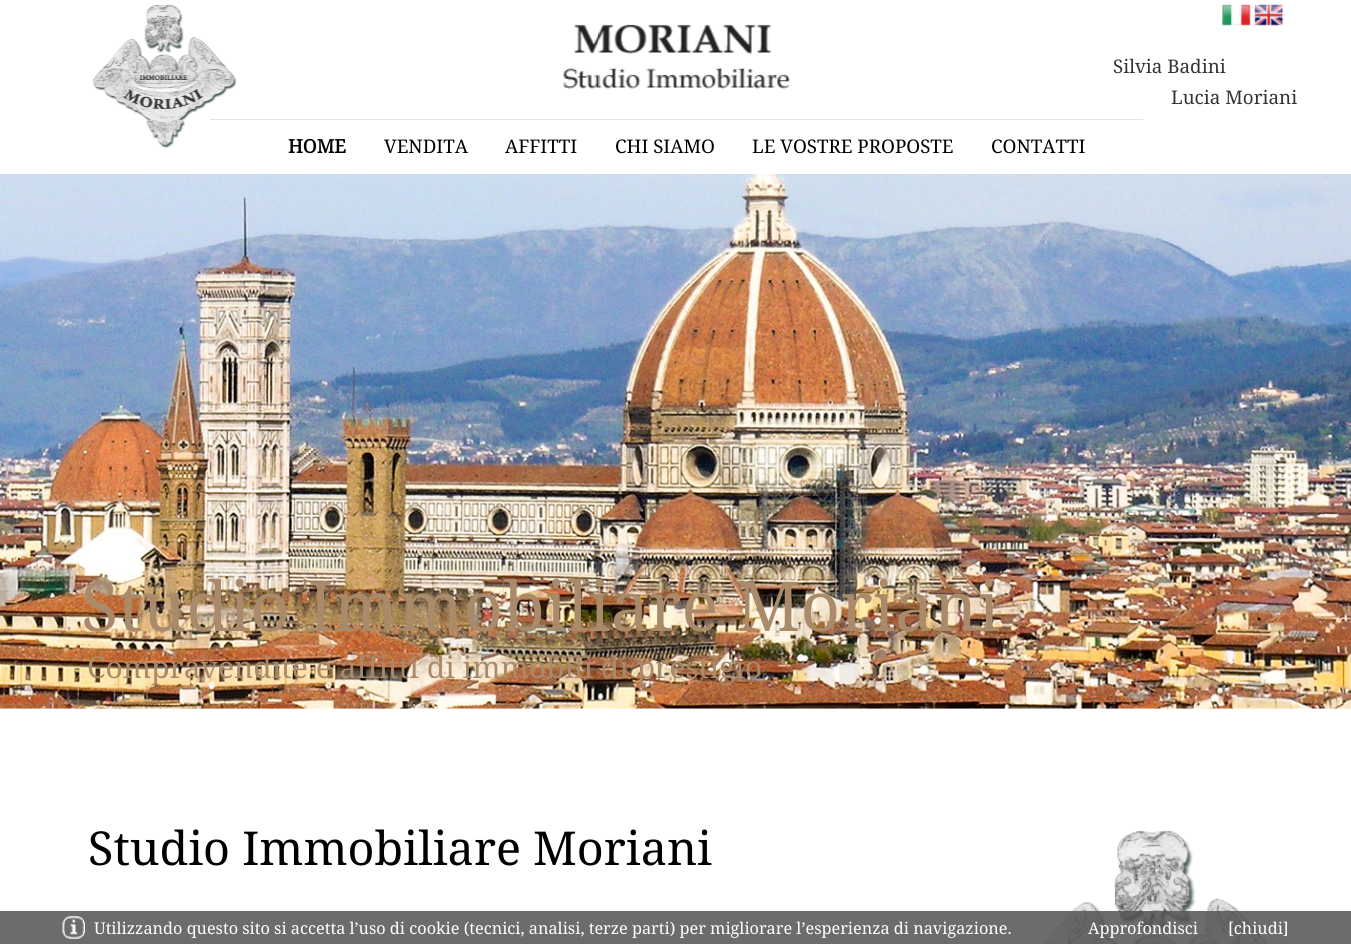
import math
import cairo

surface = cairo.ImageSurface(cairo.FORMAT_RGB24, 1351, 944)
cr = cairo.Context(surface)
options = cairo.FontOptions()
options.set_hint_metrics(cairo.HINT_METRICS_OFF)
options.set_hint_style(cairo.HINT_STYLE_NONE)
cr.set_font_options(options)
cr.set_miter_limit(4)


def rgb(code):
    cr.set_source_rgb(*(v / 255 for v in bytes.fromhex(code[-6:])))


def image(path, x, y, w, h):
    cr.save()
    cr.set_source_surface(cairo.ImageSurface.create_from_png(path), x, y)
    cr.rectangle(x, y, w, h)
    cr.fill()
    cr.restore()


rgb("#ffffff")
cr.paint()
image("img/1.png", 92, 4, 145, 144)
image("img/2.png", 1222, 4, 29, 22)
image("img/3.png", 1254, 4, 30, 22)
image("img/4.png", 563, 24, 227, 65)
rgb("#e4e4e4")
cr.rectangle(210, 119, 933, 1)
cr.fill()
image("img/5.png", 0, 174, 1351, 535)
image("img/6.png", 1044, 830, 225, 114)
cr.set_source_rgba(0.325, 0.325, 0.325, 0.85)
cr.rectangle(0, 911, 1351, 33)
cr.fill()
image("img/7.png", 62, 916, 23, 23)
cr.select_font_face("Noto Serif")
cr.set_font_size(18.75)
rgb("#333333")
cr.move_to(1113, 73)
cr.show_text("Silvia Badini")
cr.move_to(1171, 104)
cr.show_text("Lucia Moriani")
cr.select_font_face("Noto Serif", cairo.FONT_SLANT_NORMAL, cairo.FONT_WEIGHT_BOLD)
rgb("#000000")
cr.move_to(288, 153)
cr.show_text("HOME")
cr.select_font_face("Noto Serif")
for x, y, s in [
    (384, 153, "VENDITA"),
    (505, 153, "AFFITTI"),
    (615, 153, "CHI SIAMO"),
    (752, 153, "LE VOSTRE PROPOSTE"),
    (991, 153, "CONTATTI"),
]:
    cr.move_to(x, y)
    cr.show_text(s)
cr.set_font_size(68.75)
rgb("#a98b6b")
cr.move_to(81, 631)
cr.show_text("Studio Immobiliare Moriani")
cr.set_font_size(30)
cr.move_to(87, 678)
cr.show_text("Compravendite e affitti di immobili di prestigio")
cr.set_font_size(46.7)
rgb("#000000")
cr.move_to(88, 865)
cr.show_text("Studio Immobiliare Moriani")
cr.set_font_size(16.25)
rgb("#ffffff")
for x, y, s in [
    (94, 934, "Utilizzando questo sito si accetta l’uso di cookie (tecnici, analisi, terze parti) per migliorare l’esperienza di navigazione."),
    (1088, 934, "Approfondisci"),
    (1228, 934, "[chiudi]"),
]:
    cr.move_to(x, y)
    cr.show_text(s)
surface.write_to_png("page.png")
